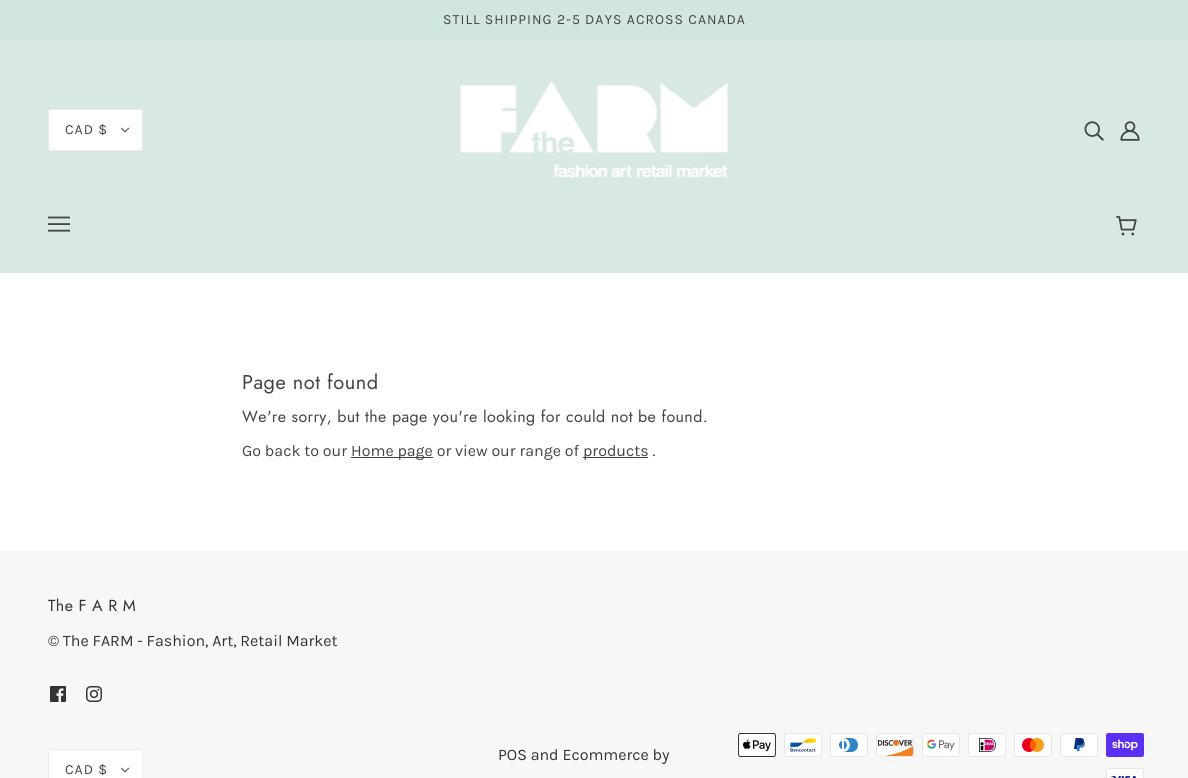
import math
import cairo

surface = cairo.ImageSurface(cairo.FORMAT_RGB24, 1188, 778)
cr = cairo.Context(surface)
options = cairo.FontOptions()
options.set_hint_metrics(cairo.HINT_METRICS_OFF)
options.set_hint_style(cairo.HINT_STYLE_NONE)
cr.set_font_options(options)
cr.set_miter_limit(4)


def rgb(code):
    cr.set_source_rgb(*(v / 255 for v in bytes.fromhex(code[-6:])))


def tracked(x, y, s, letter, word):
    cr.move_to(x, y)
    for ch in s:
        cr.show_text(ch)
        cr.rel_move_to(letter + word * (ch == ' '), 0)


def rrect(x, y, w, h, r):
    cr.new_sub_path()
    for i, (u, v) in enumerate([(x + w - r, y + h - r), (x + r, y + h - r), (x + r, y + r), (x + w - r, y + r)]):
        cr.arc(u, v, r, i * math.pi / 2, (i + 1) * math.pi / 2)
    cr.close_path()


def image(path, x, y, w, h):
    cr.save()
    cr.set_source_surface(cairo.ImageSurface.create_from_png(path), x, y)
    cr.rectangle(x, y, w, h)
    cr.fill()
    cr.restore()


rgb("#ffffff")
cr.paint()
rgb("#d1e6dd")
cr.rectangle(0, 0, 1188, 40)
cr.fill()
rgb("#d7e9e2")
cr.rectangle(0, 40, 1188, 233)
cr.fill()
rgb("#ffffff")
rrect(48.5, 109.5, 94, 41, 1.5)
cr.fill_preserve()
rgb("#ebebeb")
cr.set_line_width(1)
cr.stroke()
image("img/1.png", 120, 127, 10, 6)
image("img/2.png", 460, 81, 268, 97)
image("img/3.png", 1084, 121, 20, 20)
image("img/4.png", 1120, 121, 20, 20)
image("img/5.png", 48, 216, 22, 16)
image("img/6.png", 1116, 216, 21, 20)
for x, y, w, h, color in [
    (351, 457, 82, 1, "#444444"),
    (583, 457, 65, 1, "#444444"),
    (0, 551, 1188, 227, "#f7f7f7"),
]:
    rgb(color)
    cr.rectangle(x, y, w, h)
    cr.fill()
image("img/7.png", 50, 686, 16, 16)
image("img/8.png", 86, 686, 16, 16)
image("img/9.png", 738, 733, 38, 24)
image("img/10.png", 784, 733, 38, 24)
image("img/11.png", 830, 733, 38, 24)
image("img/12.png", 876, 733, 38, 24)
image("img/13.png", 922, 733, 38, 24)
image("img/14.png", 968, 733, 38, 24)
image("img/15.png", 1014, 733, 38, 24)
image("img/16.png", 1060, 733, 38, 24)
image("img/17.png", 1106, 733, 38, 24)
image("img/18.png", 1106, 768, 38, 10)
rgb("#ffffff")
rrect(48.5, 749.5, 94, 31, 1.5)
cr.fill_preserve()
rgb("#ebebeb")
cr.stroke()
image("img/1.png", 120, 767, 10, 6)
cr.select_font_face("Karla")
cr.set_font_size(14)
rgb("#444444")
tracked(443, 24, "STILL SHIPPING 2-5 DAYS ACROSS CANADA", 1, 0)
tracked(65, 134, "CAD $", 1, 0)
cr.select_font_face("Jost")
cr.set_font_size(20)
tracked(242, 389, "Page not found", 0.5, 0)
cr.set_font_size(16)
tracked(242, 422, "We're sorry, but the page you're looking for could not be found.", 0.4, 0)
cr.select_font_face("Karla")
for x, y, s in [
    (242, 456, "Go back to our"),
    (351, 456, "Home page or view our range of"),
    (583, 456, "products ."),
]:
    cr.move_to(x, y)
    cr.show_text(s)
cr.select_font_face("Jost")
rgb("#333333")
tracked(48, 611, "The F A R M", 0.4, 0)
cr.select_font_face("Karla")
cr.move_to(48, 646)
cr.show_text("© The FARM - Fashion, Art, Retail Market")
cr.move_to(498, 760)
cr.show_text("POS and Ecommerce by")
cr.set_font_size(14)
rgb("#444444")
tracked(65, 774, "CAD $", 1, 0)
surface.write_to_png("page.png")
